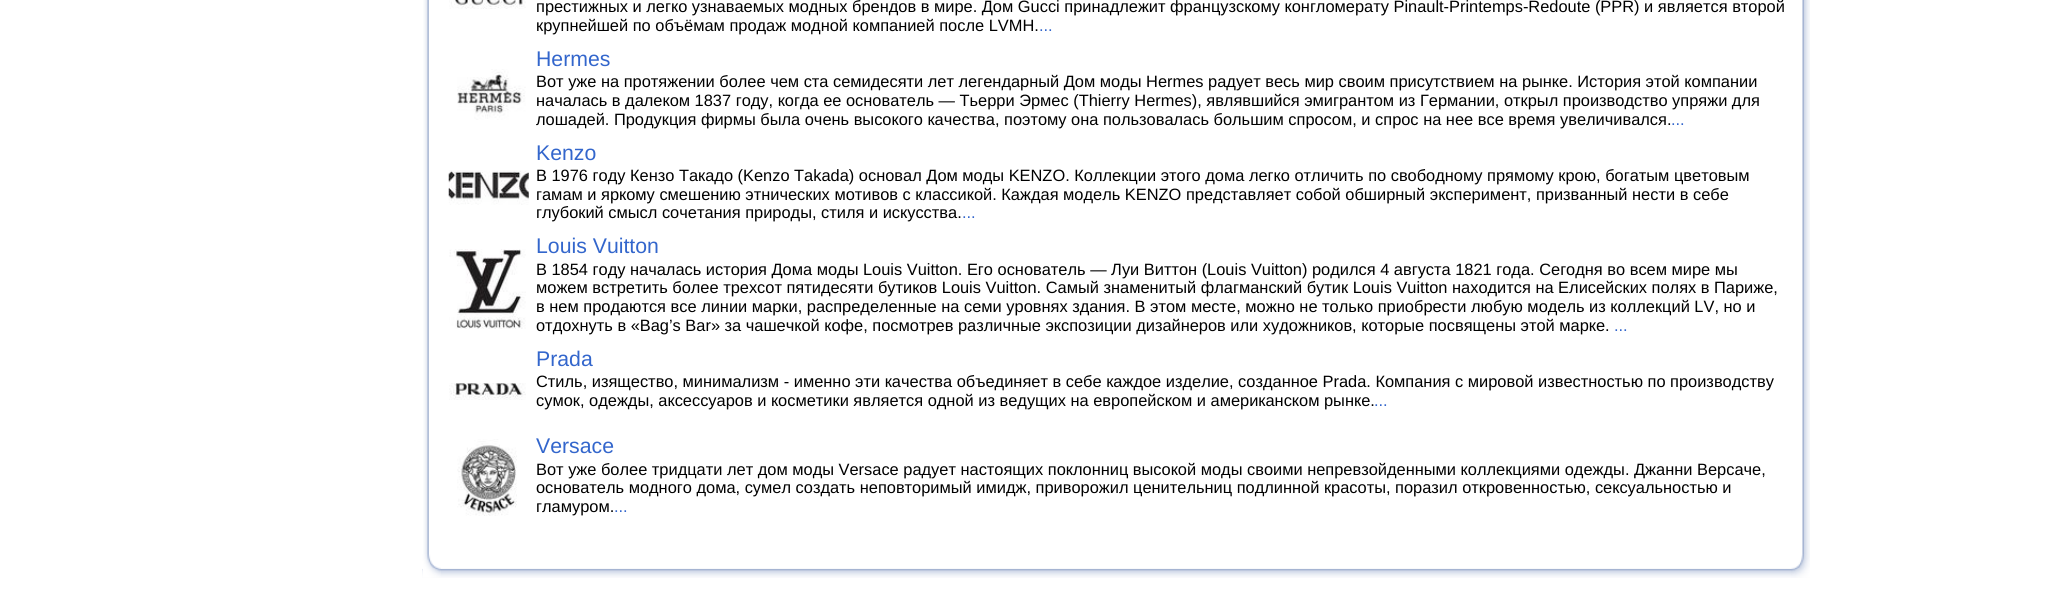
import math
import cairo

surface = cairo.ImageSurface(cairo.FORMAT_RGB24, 2060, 613)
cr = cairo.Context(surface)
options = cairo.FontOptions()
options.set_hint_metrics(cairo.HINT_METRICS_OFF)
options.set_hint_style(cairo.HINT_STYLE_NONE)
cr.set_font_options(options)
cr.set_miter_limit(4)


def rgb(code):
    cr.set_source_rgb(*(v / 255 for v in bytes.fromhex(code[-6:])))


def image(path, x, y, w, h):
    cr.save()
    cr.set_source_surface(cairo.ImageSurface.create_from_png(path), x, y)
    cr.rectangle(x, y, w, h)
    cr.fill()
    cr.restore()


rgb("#ffffff")
cr.paint()
image("img/1.png", 423, 0, 6, 554)
image("img/2.png", 1802, 0, 8, 554)
image("img/3.png", 449, 0, 77, 9)
image("img/4.png", 457, 69, 69, 51)
image("img/5.png", 448, 170, 81, 35)
image("img/6.png", 449, 249, 77, 80)
image("img/7.png", 449, 383, 77, 17)
image("img/8.png", 457, 439, 60, 77)
image("img/9.png", 422, 568, 1388, 10)
image("img/10.png", 1791, 554, 19, 24)
image("img/11.png", 422, 554, 19, 24)
cr.select_font_face("Liberation Sans")
cr.set_font_size(16.4)
rgb("#000000")
cr.move_to(536, 12)
cr.show_text("престижных и легко узнаваемых модных брендов в мире. Дом Gucci принадлежит французскому конгломерату Pinault-Printemps-Redoute (PPR) и является второй")
cr.move_to(536, 31)
cr.show_text("крупнейшей по объёмам продаж модной компанией после LVMH.")
rgb("#3366cc")
cr.move_to(1039, 31)
cr.show_text("...")
cr.set_font_size(21.25)
cr.move_to(536, 66)
cr.show_text("Hermes")
cr.set_font_size(16.4)
rgb("#000000")
for x, y, s in [
    (536, 87, "Вот уже на протяжении более чем ста семидесяти лет легендарный Дом моды Hermes радует весь мир своим присутствием на рынке. История этой компании"),
    (536, 106, "началась в далеком 1837 году, когда ее основатель — Тьерри Эрмес (Thierry Hermes), являвшийся эмигрантом из Германии, открыл производство упряжи для"),
    (536, 125, "лошадей. Продукция фирмы была очень высокого качества, поэтому она пользовалась большим спросом, и спрос на нее все время увеличивался."),
]:
    cr.move_to(x, y)
    cr.show_text(s)
rgb("#3366cc")
cr.move_to(1671, 125)
cr.show_text("...")
cr.set_font_size(21.25)
cr.move_to(536, 160)
cr.show_text("Kenzo")
cr.set_font_size(16.4)
rgb("#000000")
for x, y, s in [
    (536, 181, "В 1976 году Кензо Такадо (Kenzo Takada) основал Дом моды KENZO. Коллекции этого дома легко отличить по свободному прямому крою, богатым цветовым"),
    (536, 200, "гамам и яркому смешению этнических мотивов с классикой. Каждая модель KENZO представляет собой обширный эксперимент, призванный нести в себе"),
    (536, 218, "глубокий смысл сочетания природы, стиля и искусства."),
]:
    cr.move_to(x, y)
    cr.show_text(s)
rgb("#3366cc")
cr.move_to(962, 218)
cr.show_text("...")
cr.set_font_size(21.25)
cr.move_to(536, 253)
cr.show_text("Louis Vuitton")
cr.set_font_size(16.4)
rgb("#000000")
for x, y, s in [
    (536, 275, "В 1854 году началась история Дома моды Louis Vuitton. Его основатель — Луи Виттон (Louis Vuitton) родился 4 августа 1821 года. Сегодня во всем мире мы"),
    (536, 293, "можем встретить более трехсот пятидесяти бутиков Louis Vuitton. Самый знаменитый флагманский бутик Louis Vuitton находится на Елисейских полях в Париже,"),
    (536, 312, "в нем продаются все линии марки, распределенные на семи уровнях здания. В этом месте, можно не только приобрести любую модель из коллекций LV, но и"),
    (536, 331, "отдохнуть в «Bag’s Bar» за чашечкой кофе, посмотрев различные экспозиции дизайнеров или художников, которые посвящены этой марке."),
]:
    cr.move_to(x, y)
    cr.show_text(s)
rgb("#3366cc")
cr.move_to(1614, 331)
cr.show_text("...")
cr.set_font_size(21.25)
cr.move_to(536, 366)
cr.show_text("Prada")
cr.set_font_size(16.4)
rgb("#000000")
cr.move_to(536, 387)
cr.show_text("Стиль, изящество, минимализм - именно эти качества объединяет в себе каждое изделие, созданное Prada. Компания с мировой известностью по производству")
cr.move_to(536, 406)
cr.show_text("сумок, одежды, аксессуаров и косметики является одной из ведущих на европейском и американском рынке.")
rgb("#3366cc")
cr.move_to(1374, 406)
cr.show_text("...")
cr.set_font_size(21.25)
cr.move_to(536, 453)
cr.show_text("Versace")
cr.set_font_size(16.4)
rgb("#000000")
for x, y, s in [
    (536, 475, "Вот уже более тридцати лет дом моды Versace радует настоящих поклонниц высокой моды своими непревзойденными коллекциями одежды. Джанни Версаче,"),
    (536, 493, "основатель модного дома, сумел создать неповторимый имидж, приворожил ценительниц подлинной красоты, поразил откровенностью, сексуальностью и"),
    (536, 512, "гламуром."),
]:
    cr.move_to(x, y)
    cr.show_text(s)
rgb("#3366cc")
cr.move_to(614, 512)
cr.show_text("...")
surface.write_to_png("page.png")
